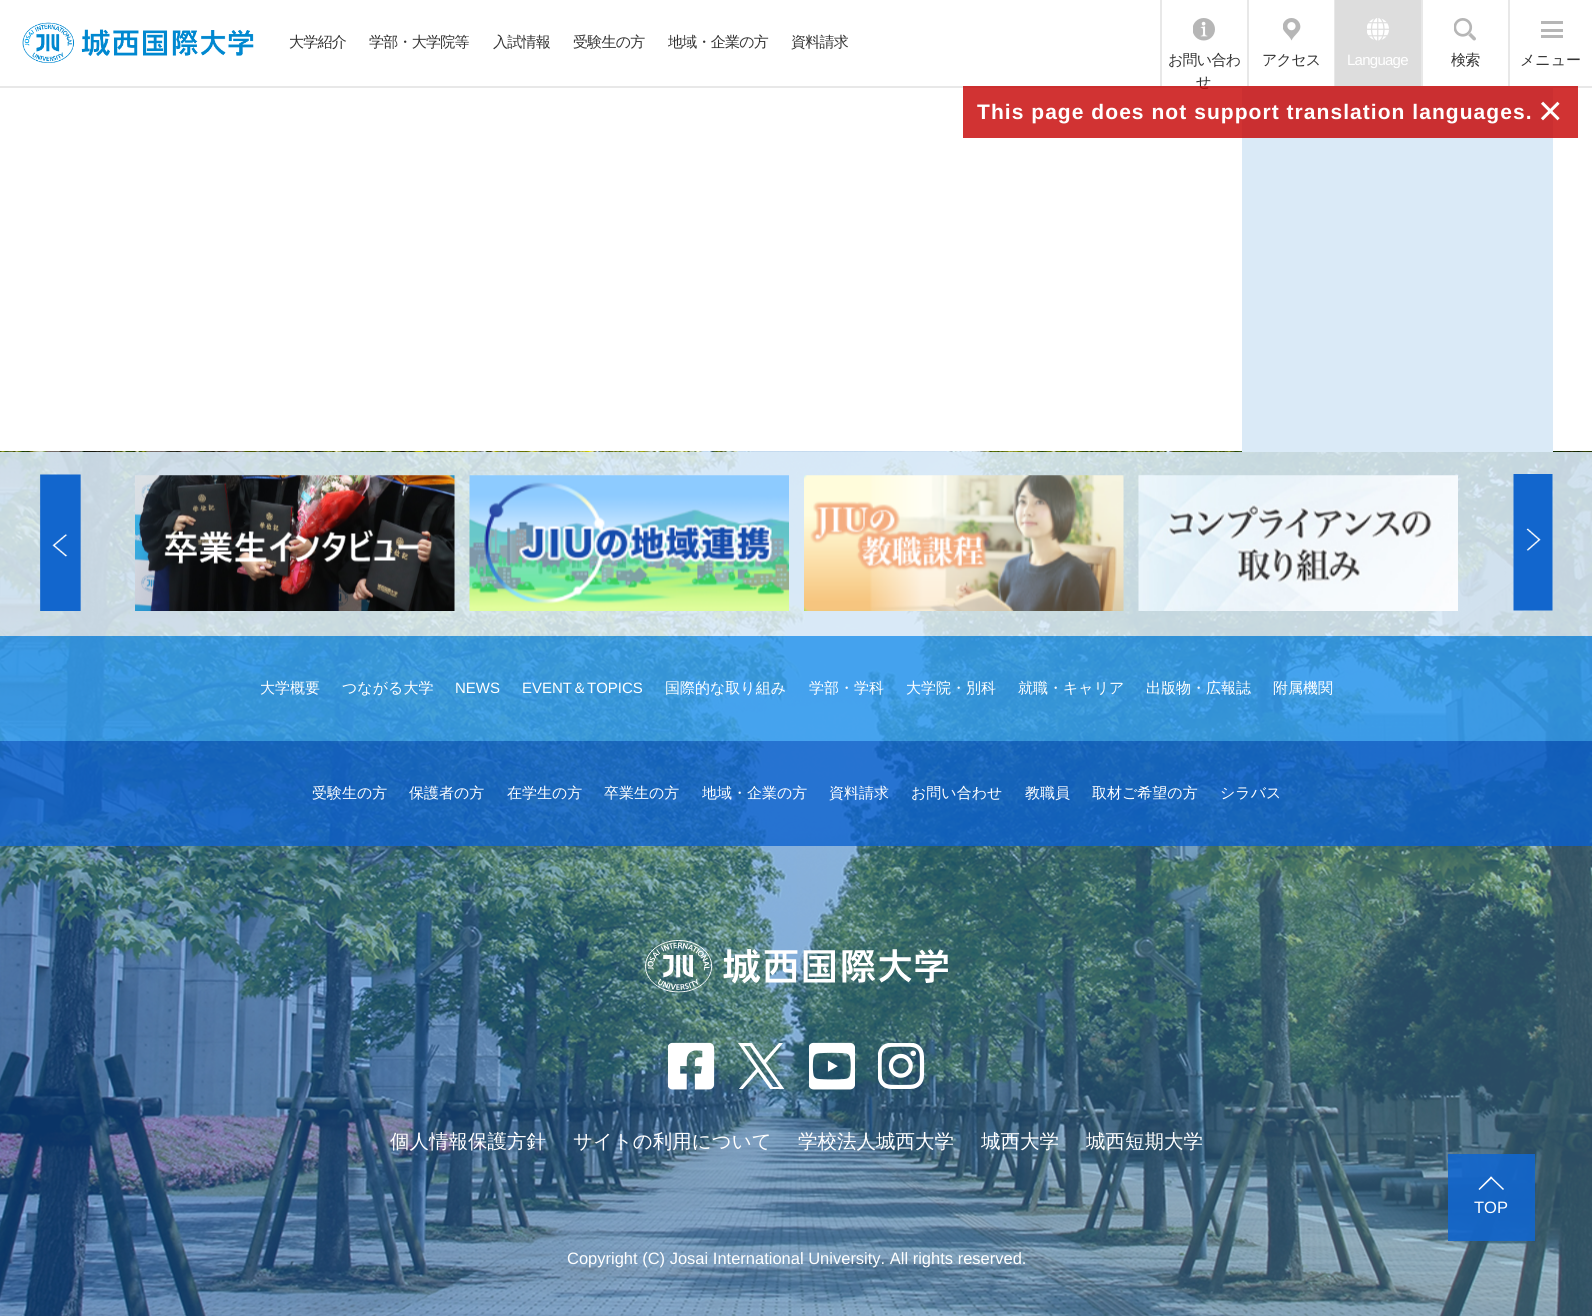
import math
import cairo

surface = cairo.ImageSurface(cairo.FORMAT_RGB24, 1592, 1316)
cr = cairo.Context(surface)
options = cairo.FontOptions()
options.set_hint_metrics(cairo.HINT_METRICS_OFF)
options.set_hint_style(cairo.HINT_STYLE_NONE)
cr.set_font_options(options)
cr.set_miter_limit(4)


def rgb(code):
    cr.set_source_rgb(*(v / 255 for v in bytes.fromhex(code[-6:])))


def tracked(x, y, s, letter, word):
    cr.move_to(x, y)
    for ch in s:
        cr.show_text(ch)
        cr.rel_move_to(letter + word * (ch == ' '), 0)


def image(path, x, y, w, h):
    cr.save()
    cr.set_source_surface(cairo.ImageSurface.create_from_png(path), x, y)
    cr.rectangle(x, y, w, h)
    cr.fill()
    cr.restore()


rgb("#ffffff")
cr.paint()
rgb("#e8e8e8")
cr.rectangle(0, 86, 1592, 2)
cr.fill()
image("img/1.png", 22, 22, 232, 41)
cr.rectangle(1160, 0, 2, 86)
cr.fill()
image("img/2.png", 1193, 18, 22, 23)
cr.rectangle(1247, 0, 2, 86)
cr.fill()
image("img/3.png", 1283, 18, 18, 23)
cr.rectangle(1334, 0, 1, 86)
cr.fill()
rgb("#dddddd")
cr.rectangle(1335, 0, 86, 86)
cr.fill()
image("img/4.png", 1367, 18, 22, 23)
rgb("#e8e8e8")
cr.rectangle(1421, 0, 2, 86)
cr.fill()
image("img/5.png", 1454, 18, 22, 23)
for x, y, w, h, color in [
    (1508, 0, 2, 86, "#e8e8e8"),
    (1541, 21, 22, 3, "#b6b6b6"),
    (1541, 29, 22, 3, "#b6b6b6"),
    (1541, 35, 22, 3, "#b6b6b6"),
]:
    rgb(color)
    cr.rectangle(x, y, w, h)
    cr.fill()
image("img/6.png", 0, 451, 1592, 865)
rgb("#daeaf7")
cr.rectangle(1242, 88, 311, 364)
cr.fill()
cr.set_source_rgba(0.855, 0.918, 0.969, 0.9)
cr.rectangle(0, 452, 1592, 184)
cr.fill()
image("img/7.png", 40, 474, 41, 137)
image("img/8.png", 135, 475, 320, 136)
image("img/9.png", 469, 475, 320, 136)
image("img/10.png", 804, 475, 320, 136)
image("img/11.png", 1138, 475, 320, 136)
image("img/12.png", 1513, 474, 40, 137)
cr.set_source_rgba(0.208, 0.608, 0.929, 0.9)
cr.rectangle(0, 636, 1592, 105)
cr.fill()
cr.set_source_rgba(0.071, 0.4, 0.804, 0.9)
cr.rectangle(0, 741, 1592, 105)
cr.fill()
image("img/13.png", 645, 940, 303, 53)
image("img/14.png", 668, 1042, 47, 48)
cr.save()
cr.rectangle(738, 1043, 47, 46)
cr.clip()
rgb("#ffffff")
cr.new_path()
cr.move_to(766, 1063)
cr.line_to(783, 1043)
cr.line_to(779, 1043)
cr.line_to(764, 1060)
cr.line_to(752, 1043)
cr.line_to(738, 1043)
cr.line_to(756, 1069)
cr.line_to(738, 1090)
cr.line_to(742, 1090)
cr.line_to(758, 1072)
cr.line_to(771, 1090)
cr.line_to(785, 1090)
cr.close_path()
cr.move_to(760, 1069)
cr.line_to(744, 1046)
cr.line_to(750, 1046)
cr.line_to(779, 1087)
cr.line_to(773, 1087)
cr.close_path()
cr.fill()
cr.restore()
image("img/15.png", 809, 1042, 46, 48)
image("img/16.png", 878, 1043, 47, 46)
cr.rectangle(1448, 1154, 87, 87)
cr.fill()
rgb("#ffffff")
cr.new_path()
cr.move_to(1491, 1176.5)
cr.line_to(1504, 1189)
cr.line_to(1503, 1190)
cr.line_to(1490, 1177.5)
cr.close_path()
cr.fill()
cr.new_path()
cr.move_to(1491, 1176.5)
cr.line_to(1492.5, 1177.5)
cr.line_to(1479.5, 1190)
cr.line_to(1478.5, 1189)
cr.close_path()
cr.fill()
cr.select_font_face("WenQuanYi Zen Hei Medium")
cr.set_font_size(15)
rgb("#333333")
for x, y, s in [
    (289, 47, "大学紹介"),
    (369, 47, "学部・大学院等"),
    (493, 47, "入試情報"),
    (573, 47, "受験生の方"),
    (668, 47, "地域・企業の方"),
    (791, 47, "資料請求"),
    (1168, 65, "お問い合わ"),
    (1196, 87, "せ"),
    (1262, 65, "アクセス"),
]:
    tracked(x, y, s, -0.75, 0)
cr.select_font_face("Liberation Sans")
rgb("#ffffff")
tracked(1347, 65, "Language", -0.75, 0)
cr.select_font_face("WenQuanYi Zen Hei Medium")
rgb("#333333")
tracked(1451, 65, "検索", -0.75, 0)
cr.move_to(1520, 65)
cr.show_text("メニュー")
cr.set_source_rgba(0.773, 0, 0, 0.8)
cr.rectangle(963, 86, 615, 52)
cr.fill()
cr.select_font_face("Liberation Sans", cairo.FONT_SLANT_NORMAL, cairo.FONT_WEIGHT_BOLD)
cr.set_font_size(21)
rgb("#ffffff")
tracked(977, 119, "This page does not support translation languages.", 1.05, 0)
cr.select_font_face("Liberation Sans")
cr.set_font_size(42)
cr.move_to(1538, 125)
cr.show_text("×")
cr.select_font_face("WenQuanYi Zen Hei Medium")
cr.set_font_size(15)
cr.move_to(260, 693)
cr.show_text("大学概要")
cr.move_to(342, 693)
cr.show_text("つながる大学")
cr.select_font_face("Liberation Sans")
cr.move_to(455, 693)
cr.show_text("NEWS")
cr.move_to(522, 693)
cr.show_text("EVENT")
cr.select_font_face("WenQuanYi Zen Hei Medium")
cr.move_to(572, 693)
cr.show_text("＆")
cr.select_font_face("Liberation Sans")
cr.move_to(587, 693)
cr.show_text("TOPICS")
cr.select_font_face("WenQuanYi Zen Hei Medium")
for x, y, s in [
    (665, 693, "国際的な取り組み"),
    (809, 693, "学部・学科"),
    (906, 693, "大学院・別科"),
    (1018, 693, "就職・キャリア"),
    (1146, 693, "出版物・広報誌"),
    (1273, 693, "附属機関"),
    (312, 798, "受験生の方"),
    (409, 798, "保護者の方"),
    (507, 798, "在学生の方"),
    (604, 798, "卒業生の方"),
    (702, 798, "地域・企業の方"),
    (829, 798, "資料請求"),
    (911, 798, "お問い合わせ"),
    (1025, 798, "教職員"),
    (1092, 798, "取材ご希望の方"),
    (1220, 798, "シラバス"),
]:
    cr.move_to(x, y)
    cr.show_text(s)
cr.set_font_size(19.5)
for x, y, s in [
    (390, 1148, "個人情報保護方針"),
    (573, 1148, "サイトの利用について"),
    (798, 1148, "学校法人城西大学"),
    (981, 1148, "城西大学"),
    (1086, 1148, "城西短期大学"),
]:
    cr.move_to(x, y)
    cr.show_text(s)
cr.select_font_face("Liberation Sans")
cr.set_font_size(16.5)
cr.move_to(567, 1264)
cr.show_text("Copyright (C) Josai International University. All rights reserved.")
cr.move_to(1474, 1213)
cr.show_text("TOP")
surface.write_to_png("page.png")
